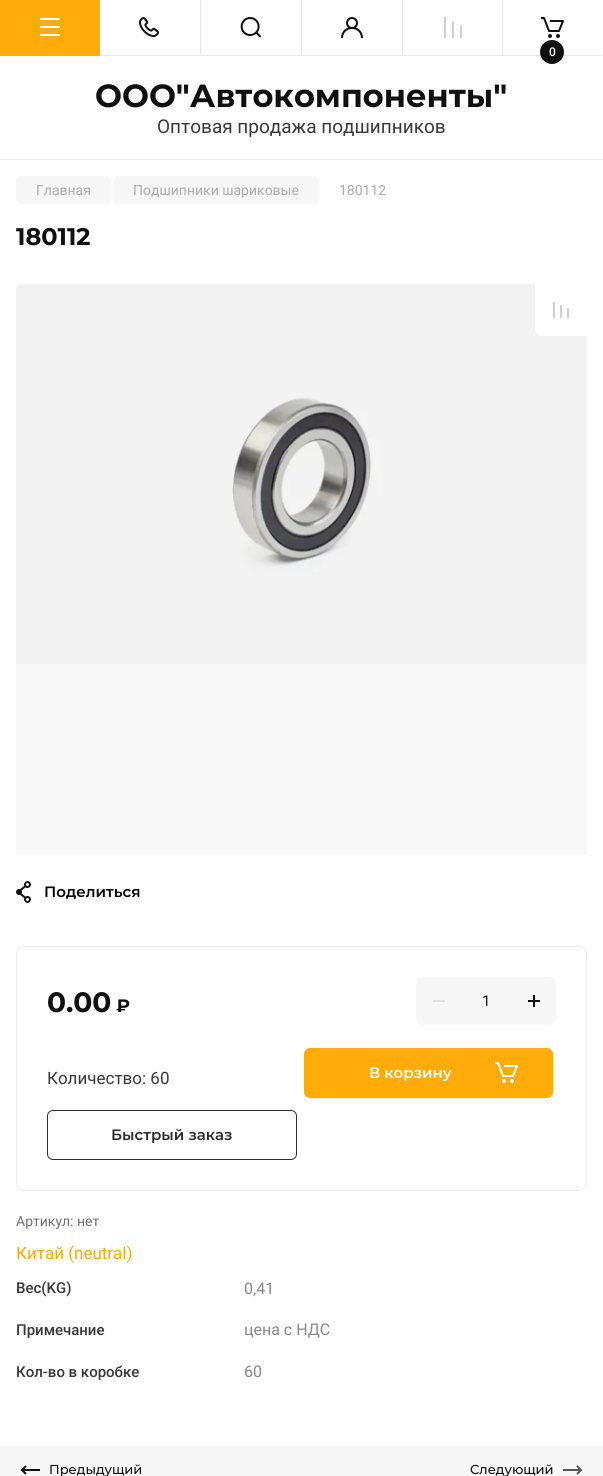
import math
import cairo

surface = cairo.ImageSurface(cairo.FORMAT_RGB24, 603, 1476)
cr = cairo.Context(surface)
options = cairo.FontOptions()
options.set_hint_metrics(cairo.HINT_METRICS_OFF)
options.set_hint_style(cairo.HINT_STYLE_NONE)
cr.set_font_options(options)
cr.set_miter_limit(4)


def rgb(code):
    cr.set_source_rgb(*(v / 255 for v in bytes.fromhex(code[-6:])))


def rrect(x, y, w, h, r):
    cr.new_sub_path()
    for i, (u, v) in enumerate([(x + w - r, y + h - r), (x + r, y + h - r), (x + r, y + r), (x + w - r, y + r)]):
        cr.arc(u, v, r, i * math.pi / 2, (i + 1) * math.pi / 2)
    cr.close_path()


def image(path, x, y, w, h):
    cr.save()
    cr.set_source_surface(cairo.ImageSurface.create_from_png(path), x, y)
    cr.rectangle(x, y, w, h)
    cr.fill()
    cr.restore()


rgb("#ffffff")
cr.paint()
rgb("#ffab09")
cr.rectangle(0, 0, 100, 56)
cr.fill()
image("img/1.png", 40, 18, 20, 18)
rgb("#e7e7e7")
cr.rectangle(100, 55, 100, 1)
cr.fill()
image("img/2.png", 139, 17, 20, 20)
cr.new_path()
cr.move_to(301, 56)
cr.line_to(200, 56)
cr.line_to(201, 55)
cr.line_to(301, 55)
cr.close_path()
cr.fill()
cr.set_source_rgba(0.063, 0.063, 0.063, 0.1)
cr.new_path()
cr.move_to(200, 56)
cr.line_to(200, 0)
cr.line_to(201, 0)
cr.line_to(201, 55)
cr.close_path()
cr.fill()
image("img/3.png", 240, 17, 22, 21)
rgb("#e7e7e7")
cr.new_path()
cr.move_to(402, 56)
cr.line_to(301, 56)
cr.line_to(302, 55)
cr.line_to(402, 55)
cr.close_path()
cr.fill()
cr.set_source_rgba(0.063, 0.063, 0.063, 0.1)
cr.new_path()
cr.move_to(301, 56)
cr.line_to(301, 0)
cr.line_to(302, 0)
cr.line_to(302, 55)
cr.close_path()
cr.fill()
image("img/4.png", 341, 17, 22, 21)
rgb("#e7e7e7")
cr.new_path()
cr.move_to(503, 56)
cr.line_to(402, 56)
cr.line_to(403, 55)
cr.line_to(503, 55)
cr.close_path()
cr.fill()
cr.set_source_rgba(0.063, 0.063, 0.063, 0.1)
cr.new_path()
cr.move_to(402, 56)
cr.line_to(402, 0)
cr.line_to(403, 0)
cr.line_to(403, 55)
cr.close_path()
cr.fill()
image("img/5.png", 444, 17, 18, 21)
cr.new_path()
cr.move_to(602, 56)
cr.line_to(502, 56)
cr.line_to(503, 55)
cr.line_to(602, 55)
cr.close_path()
cr.fill()
cr.new_path()
cr.move_to(502, 56)
cr.line_to(502, 0)
cr.line_to(503, 0)
cr.line_to(503, 55)
cr.close_path()
cr.fill()
image("img/6.png", 541, 17, 23, 21)
rgb("#101010")
cr.arc(552, 52, 12, 0, 2 * math.pi)
cr.fill()
rgb("#ececec")
cr.rectangle(0, 159, 603, 1)
cr.fill()
rgb("#f7f7f7")
rrect(16, 176, 95, 28, 4)
cr.fill()
rrect(113, 176, 206, 28, 4)
cr.fill()
image("img/7.png", 16, 284, 571, 380)
cr.set_source_rgba(0, 0, 0, 0.03)
cr.rectangle(16, 284, 571, 571)
cr.fill()
rgb("#ffffff")
cr.new_path()
cr.move_to(535, 284)
cr.line_to(587, 284)
cr.line_to(587, 336)
cr.line_to(543, 336)
cr.curve_to(538.5, 336, 535, 332.5, 535, 328)
cr.close_path()
cr.fill()
image("img/8.png", 553, 302, 16, 16)
image("img/9.png", 16, 881, 15, 22)
rrect(16.5, 946.5, 570, 244, 7.5)
rgb("#ececec")
cr.set_line_width(1)
cr.stroke()
rgb("#f7f7f7")
rrect(416, 977, 140, 48, 8)
cr.fill()
rgb("#e0e0e0")
cr.rectangle(433, 1000, 12, 2)
cr.fill()
image("img/10.png", 528, 995, 12, 12)
rgb("#ffab09")
rrect(304, 1048, 249, 50, 6)
cr.fill()
image("img/11.png", 495, 1062, 23, 21)
rrect(47.5, 1110.5, 249, 49, 5.5)
rgb("#2c2c2c")
cr.stroke()
rgb("#f7f7f7")
cr.rectangle(0, 1446, 603, 30)
cr.fill()
image("img/12.png", 20, 1465, 20, 10)
image("img/13.png", 563, 1465, 20, 10)
cr.select_font_face("Roboto Medium")
cr.set_font_size(12)
rgb("#ffffff")
cr.move_to(549, 56)
cr.show_text("0")
cr.select_font_face("Montserrat", cairo.FONT_SLANT_NORMAL, cairo.FONT_WEIGHT_BOLD)
cr.set_font_size(32)
rgb("#101010")
cr.move_to(95, 107)
cr.show_text("ООО\"Автокомпоненты\"")
cr.select_font_face("Roboto")
cr.set_font_size(19)
rgb("#393939")
cr.move_to(157, 133)
cr.show_text("Оптовая продажа подшипников")
cr.set_font_size(14)
rgb("#ababab")
for x, y, s in [
    (36, 195, "Главная"),
    (133, 195, "Подшипники шариковые"),
    (339, 195, "180112"),
]:
    cr.move_to(x, y)
    cr.show_text(s)
cr.select_font_face("Montserrat", cairo.FONT_SLANT_NORMAL, cairo.FONT_WEIGHT_BOLD)
cr.set_font_size(24)
rgb("#101010")
cr.move_to(16, 245)
cr.show_text("180112")
cr.select_font_face("Montserrat SemiBold")
cr.set_font_size(15)
rgb("#000000")
cr.move_to(44, 897)
cr.show_text("Поделиться")
cr.select_font_face("Montserrat", cairo.FONT_SLANT_NORMAL, cairo.FONT_WEIGHT_BOLD)
cr.set_font_size(28)
rgb("#101010")
cr.move_to(47, 1012)
cr.show_text("0.00")
cr.set_font_size(18)
cr.move_to(116, 1012)
cr.show_text("₽")
cr.select_font_face("Roboto")
cr.set_font_size(15)
cr.move_to(482, 1006)
cr.show_text("1")
cr.set_font_size(17)
rgb("#393939")
cr.move_to(47, 1084)
cr.show_text("Количество: 60")
cr.select_font_face("Montserrat SemiBold")
cr.set_font_size(15)
rgb("#ffffff")
cr.move_to(369, 1078)
cr.show_text("В корзину")
rgb("#2c2c2c")
cr.move_to(111, 1140)
cr.show_text("Быстрый заказ")
cr.select_font_face("Roboto")
cr.set_font_size(14)
rgb("#707070")
cr.move_to(16, 1226)
cr.show_text("Артикул: нет")
cr.set_font_size(17)
rgb("#ffab09")
cr.move_to(16, 1259)
cr.show_text("Китай (neutral)")
cr.select_font_face("Roboto Medium")
cr.set_font_size(15)
rgb("#393939")
cr.move_to(16, 1293)
cr.show_text("Вес(KG)")
cr.select_font_face("Roboto")
cr.set_font_size(16)
rgb("#888888")
cr.move_to(244, 1294)
cr.show_text("0,41")
cr.select_font_face("Roboto Medium")
cr.set_font_size(15)
rgb("#393939")
cr.move_to(16, 1335)
cr.show_text("Примечание")
cr.select_font_face("Roboto")
cr.set_font_size(16)
rgb("#888888")
cr.move_to(244, 1335)
cr.show_text("цена с НДС")
cr.select_font_face("Roboto Medium")
cr.set_font_size(15)
rgb("#393939")
cr.move_to(16, 1377)
cr.show_text("Кол-во в коробке")
cr.select_font_face("Roboto")
cr.set_font_size(16)
rgb("#888888")
cr.move_to(244, 1377)
cr.show_text("60")
cr.select_font_face("Montserrat Medium")
cr.set_font_size(13)
rgb("#101010")
cr.move_to(49, 1474)
cr.show_text("Предыдущий")
cr.move_to(470, 1474)
cr.show_text("Следующий")
surface.write_to_png("page.png")
